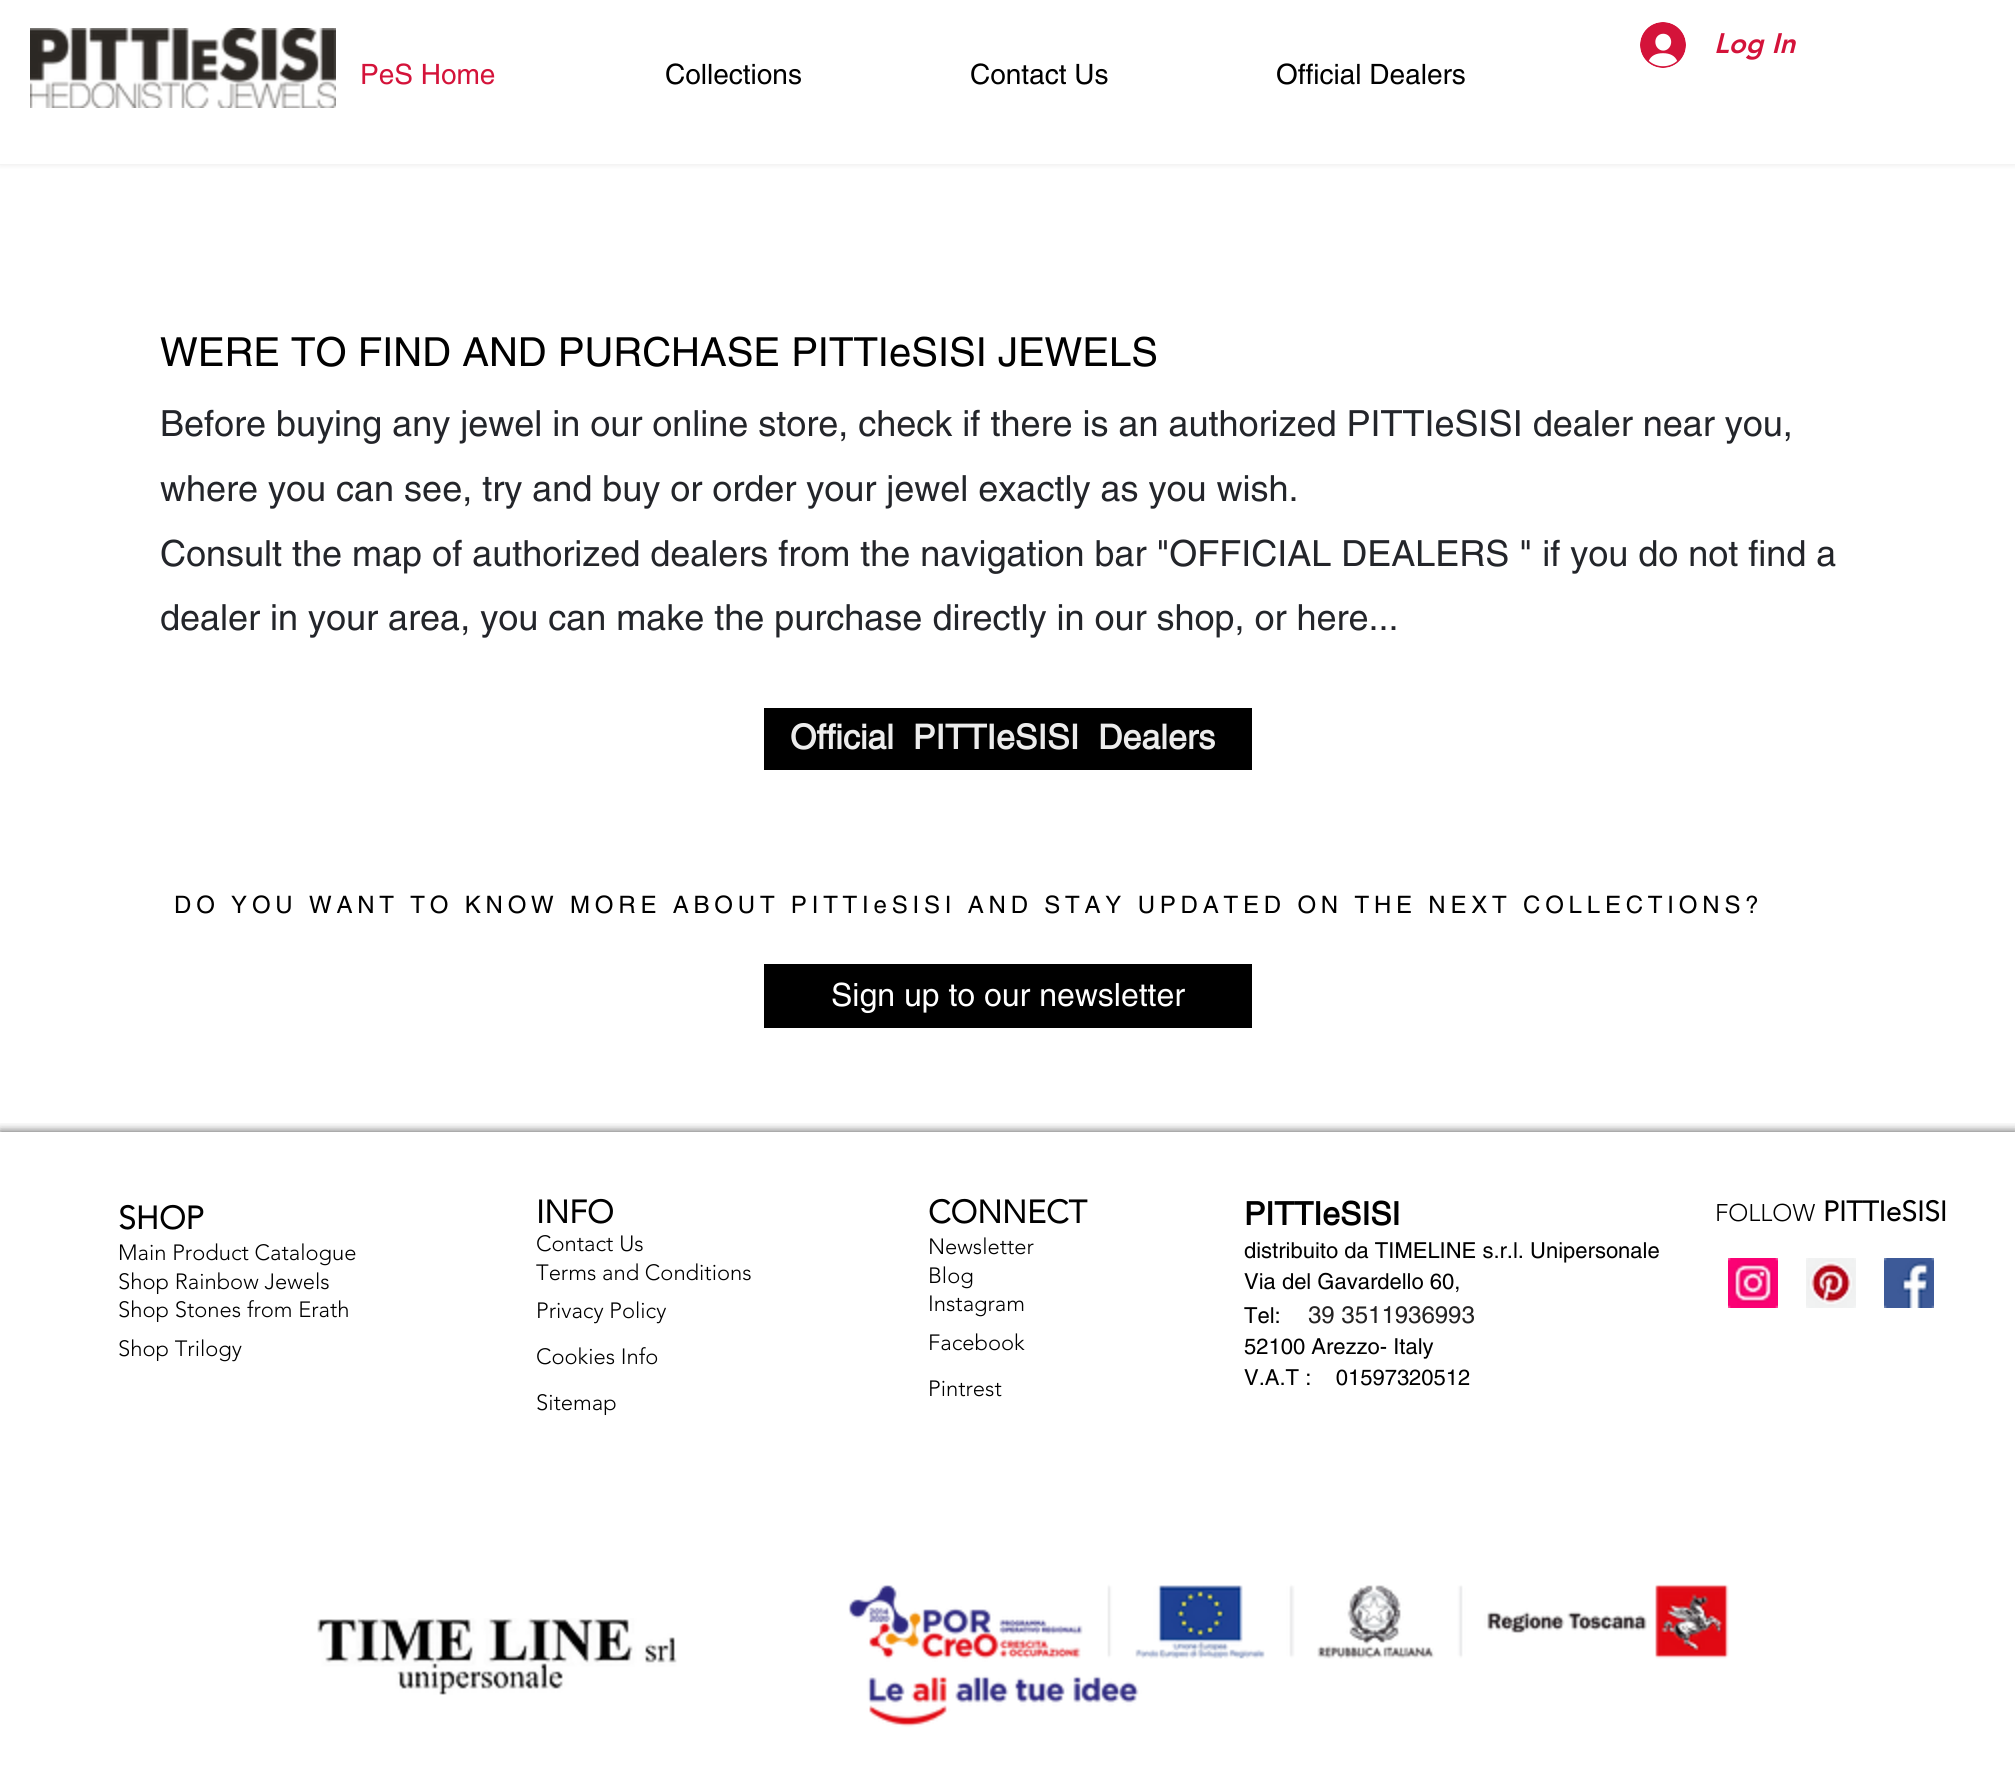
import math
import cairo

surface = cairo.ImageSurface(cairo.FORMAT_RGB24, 2015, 1789)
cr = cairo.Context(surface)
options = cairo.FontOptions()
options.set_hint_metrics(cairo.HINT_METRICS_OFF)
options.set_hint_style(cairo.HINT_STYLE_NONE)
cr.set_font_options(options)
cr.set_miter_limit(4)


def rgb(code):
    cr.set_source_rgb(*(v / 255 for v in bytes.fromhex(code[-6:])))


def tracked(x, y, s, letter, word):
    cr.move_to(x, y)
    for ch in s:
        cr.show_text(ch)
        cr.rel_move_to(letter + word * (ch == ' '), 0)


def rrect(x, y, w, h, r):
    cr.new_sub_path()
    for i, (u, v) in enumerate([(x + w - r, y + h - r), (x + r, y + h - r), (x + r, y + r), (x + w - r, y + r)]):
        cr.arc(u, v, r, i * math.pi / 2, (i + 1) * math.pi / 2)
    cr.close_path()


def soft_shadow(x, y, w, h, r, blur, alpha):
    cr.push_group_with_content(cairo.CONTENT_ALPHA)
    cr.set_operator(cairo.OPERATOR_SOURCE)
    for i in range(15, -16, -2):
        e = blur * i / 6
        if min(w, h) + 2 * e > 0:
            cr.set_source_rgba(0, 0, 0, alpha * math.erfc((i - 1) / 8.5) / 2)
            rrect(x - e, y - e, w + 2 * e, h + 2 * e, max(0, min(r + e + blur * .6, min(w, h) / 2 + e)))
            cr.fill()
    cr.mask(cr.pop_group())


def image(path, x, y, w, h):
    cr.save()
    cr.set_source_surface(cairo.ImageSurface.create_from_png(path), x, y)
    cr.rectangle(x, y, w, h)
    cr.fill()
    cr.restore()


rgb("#ffffff")
cr.paint()
cr.save()
cr.rectangle(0, 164, 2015, 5)
cr.clip()
rgb("#b5b4b4")
soft_shadow(0, -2, 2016, 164, 0, 4, 0.6)
cr.restore()
image("img/1.png", 30, 28, 306, 80)
image("img/2.png", 1640, 22, 46, 46)
rgb("#000000")
cr.rectangle(764, 708, 488, 62)
cr.fill()
cr.rectangle(764, 964, 488, 64)
cr.fill()
cr.save()
cr.rectangle(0, 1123, 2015, 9)
cr.clip()
rgb("#000000")
soft_shadow(0, 1132, 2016, 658, 0, 5, 0.7)
cr.restore()
image("img/3.png", 1728, 1258, 50, 50)
image("img/4.png", 1806, 1258, 50, 50)
image("img/5.png", 1884, 1258, 50, 50)
image("img/6.png", 317, 1618, 360, 77)
image("img/7.png", 848, 1584, 881, 143)
cr.select_font_face("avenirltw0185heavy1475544 Black", cairo.FONT_SLANT_ITALIC)
cr.set_font_size(28)
rgb("#d4133a")
cr.move_to(1714, 53)
cr.show_text("Log In")
cr.select_font_face("helvetica")
cr.move_to(360, 84)
cr.show_text("PeS Home")
rgb("#000000")
for x, y, s in [
    (665, 84, "Collections"),
    (970, 84, "Contact Us"),
    (1276, 84, "Official Dealers"),
]:
    cr.move_to(x, y)
    cr.show_text(s)
cr.set_font_size(40)
cr.move_to(160, 366)
cr.show_text("WERE TO FIND AND PURCHASE PITTIeSISI JEWELS")
cr.set_font_size(36)
rgb("#23252a")
for x, y, s in [
    (160, 436, "Before buying any jewel in our online store, check if there is an authorized PITTIeSISI dealer near you,"),
    (160, 501, "where you can see, try and buy or order your jewel exactly as you wish."),
    (160, 566, "Consult the map of authorized dealers from the navigation bar \"OFFICIAL DEALERS \" if you do not find a"),
    (160, 630, "dealer in your area, you can make the purchase directly in our shop, or here..."),
]:
    cr.move_to(x, y)
    cr.show_text(s)
cr.select_font_face("helvetica", cairo.FONT_SLANT_NORMAL, cairo.FONT_WEIGHT_BOLD)
cr.set_font_size(34)
rgb("#ececec")
cr.move_to(790, 749)
cr.show_text("Official  PITTIeSISI  Dealers")
cr.select_font_face("helvetica")
cr.set_font_size(24)
rgb("#000000")
tracked(174, 913, "DO YOU WANT TO KNOW MORE ABOUT PITTIeSISI AND STAY UPDATED ON THE NEXT COLLECTIONS?", 4.8, 0)
cr.set_font_size(32)
rgb("#ffffff")
cr.move_to(831, 1006)
cr.show_text("Sign up to our newsletter")
cr.select_font_face("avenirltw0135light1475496", cairo.FONT_SLANT_NORMAL, cairo.FONT_WEIGHT_BOLD)
rgb("#000000")
cr.move_to(118, 1229)
cr.show_text("SHOP")
cr.select_font_face("avenirltw0135light1475496 Light")
cr.set_font_size(22)
for x, y, s in [
    (118, 1260, "Main Product Catalogue"),
    (118, 1289, "Shop Rainbow Jewels"),
    (118, 1317, "Shop Stones from Erath"),
    (118, 1356, "Shop Trilogy"),
]:
    cr.move_to(x, y)
    cr.show_text(s)
cr.select_font_face("avenirltw0135light1475496", cairo.FONT_SLANT_NORMAL, cairo.FONT_WEIGHT_BOLD)
cr.set_font_size(32)
cr.move_to(536, 1223)
cr.show_text("INFO")
cr.select_font_face("avenirltw0135light1475496 Light")
cr.set_font_size(22)
for x, y, s in [
    (536, 1251, "Contact Us"),
    (536, 1280, "Terms and Conditions"),
    (536, 1318, "Privacy Policy"),
    (536, 1364, "Cookies Info"),
    (536, 1410, "Sitemap"),
]:
    cr.move_to(x, y)
    cr.show_text(s)
cr.select_font_face("avenirltw0135light1475496", cairo.FONT_SLANT_NORMAL, cairo.FONT_WEIGHT_BOLD)
cr.set_font_size(32)
cr.move_to(928, 1223)
cr.show_text("CONNECT")
cr.select_font_face("avenirltw0135light1475496 Light")
cr.set_font_size(22)
for x, y, s in [
    (928, 1254, "Newsletter"),
    (928, 1283, "Blog"),
    (928, 1311, "Instagram"),
    (928, 1350, "Facebook"),
    (928, 1396, "Pintrest"),
]:
    cr.move_to(x, y)
    cr.show_text(s)
cr.select_font_face("helvetica", cairo.FONT_SLANT_NORMAL, cairo.FONT_WEIGHT_BOLD)
cr.set_font_size(32)
cr.move_to(1244, 1225)
cr.show_text("PITTIeSISI")
cr.select_font_face("helvetica")
cr.set_font_size(22)
for x, y, s in [
    (1244, 1258, "distribuito da TIMELINE s.r.l. Unipersonale"),
    (1244, 1289, "Via del Gavardello 60,"),
    (1244, 1323, "Tel:"),
]:
    cr.move_to(x, y)
    cr.show_text(s)
cr.set_font_size(24)
rgb("#242323")
cr.move_to(1308, 1323)
cr.show_text("39 3511936993")
cr.set_font_size(22)
rgb("#000000")
cr.move_to(1244, 1354)
cr.show_text("52100 Arezzo- Italy")
cr.move_to(1244, 1385)
cr.show_text("V.A.T :    01597320512")
cr.select_font_face("avenirltw0135light1475496 Light")
cr.set_font_size(24)
cr.move_to(1715, 1221)
cr.show_text("FOLLOW")
cr.select_font_face("avenirltw0135light1475496", cairo.FONT_SLANT_NORMAL, cairo.FONT_WEIGHT_BOLD)
cr.set_font_size(28)
cr.move_to(1823, 1221)
cr.show_text("PITTIeSISI")
surface.write_to_png("page.png")
